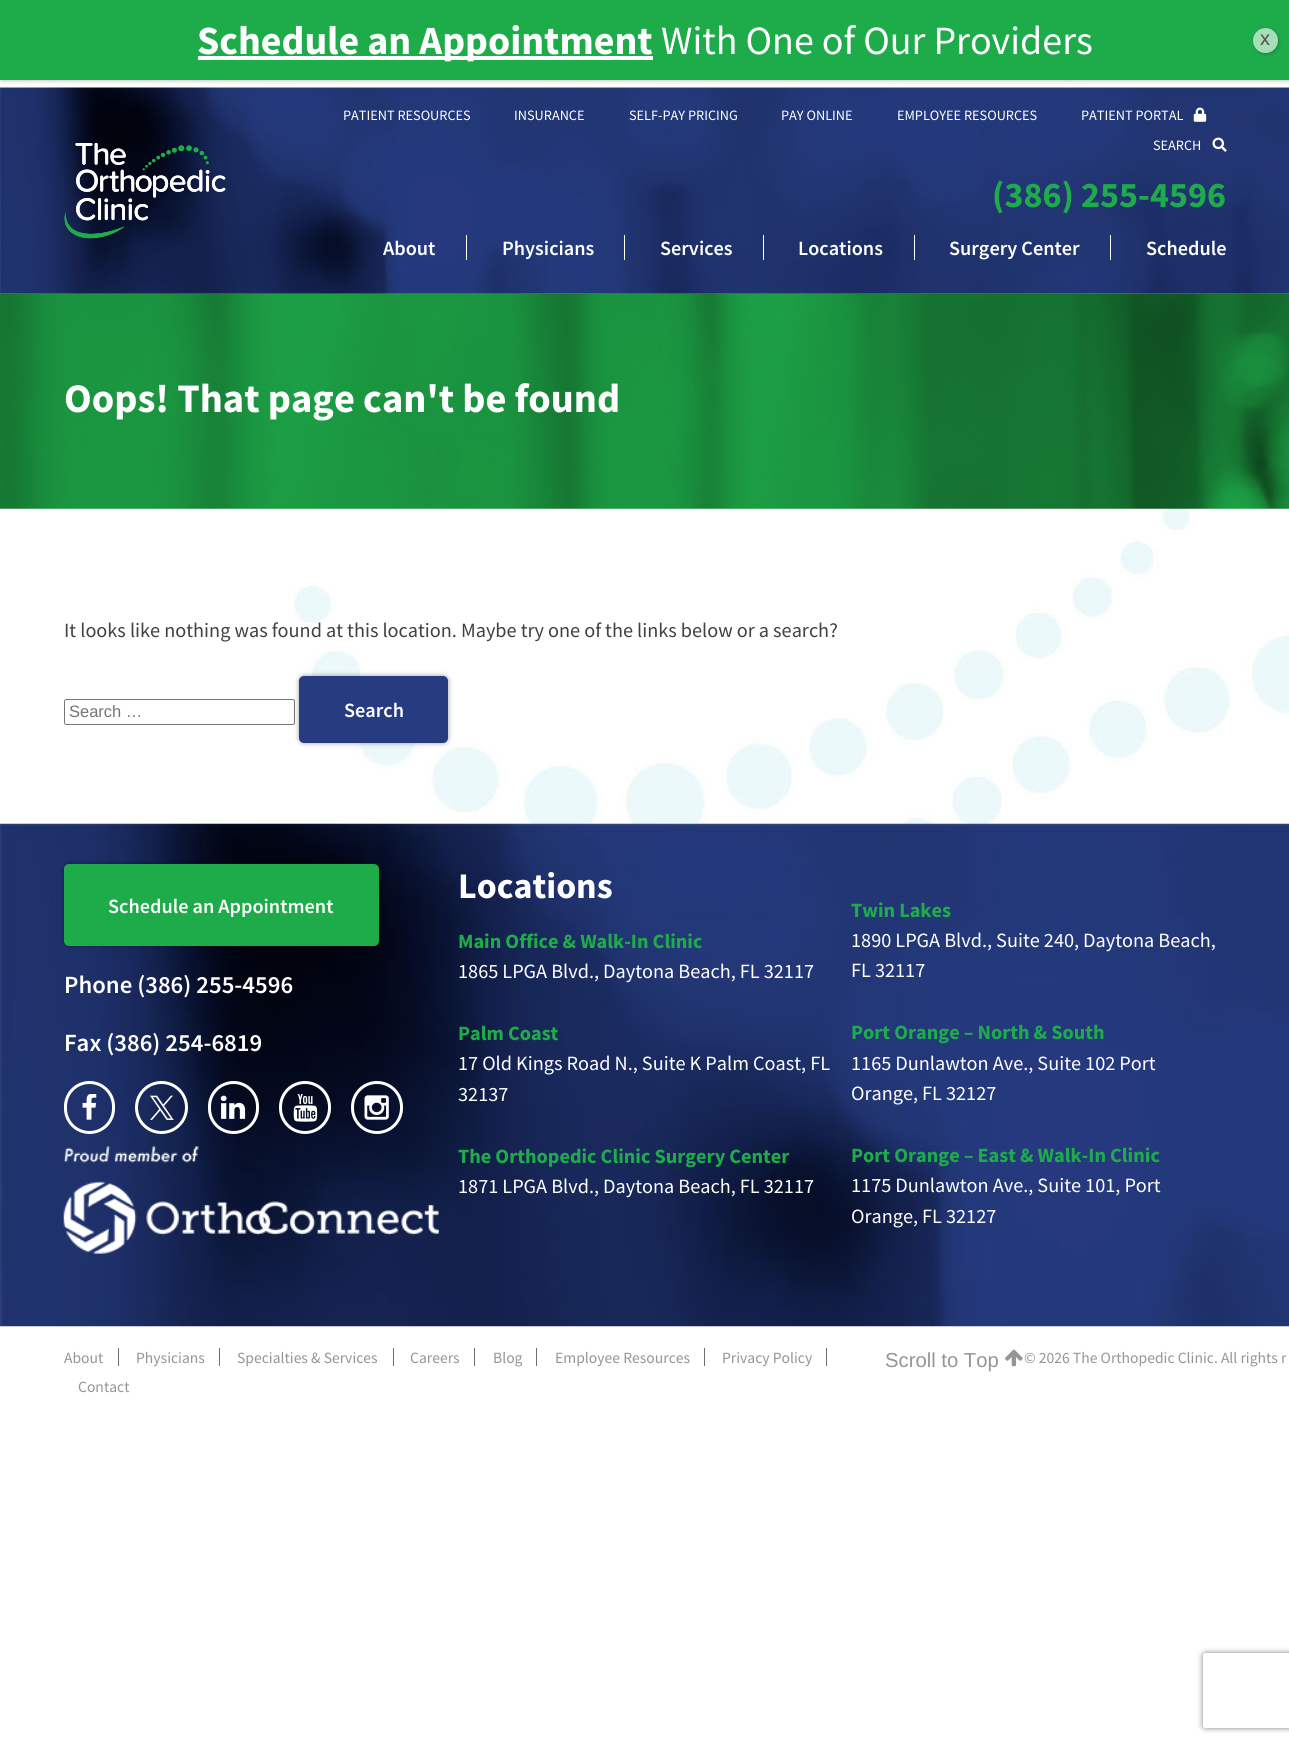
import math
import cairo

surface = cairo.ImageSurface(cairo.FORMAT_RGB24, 1289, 1745)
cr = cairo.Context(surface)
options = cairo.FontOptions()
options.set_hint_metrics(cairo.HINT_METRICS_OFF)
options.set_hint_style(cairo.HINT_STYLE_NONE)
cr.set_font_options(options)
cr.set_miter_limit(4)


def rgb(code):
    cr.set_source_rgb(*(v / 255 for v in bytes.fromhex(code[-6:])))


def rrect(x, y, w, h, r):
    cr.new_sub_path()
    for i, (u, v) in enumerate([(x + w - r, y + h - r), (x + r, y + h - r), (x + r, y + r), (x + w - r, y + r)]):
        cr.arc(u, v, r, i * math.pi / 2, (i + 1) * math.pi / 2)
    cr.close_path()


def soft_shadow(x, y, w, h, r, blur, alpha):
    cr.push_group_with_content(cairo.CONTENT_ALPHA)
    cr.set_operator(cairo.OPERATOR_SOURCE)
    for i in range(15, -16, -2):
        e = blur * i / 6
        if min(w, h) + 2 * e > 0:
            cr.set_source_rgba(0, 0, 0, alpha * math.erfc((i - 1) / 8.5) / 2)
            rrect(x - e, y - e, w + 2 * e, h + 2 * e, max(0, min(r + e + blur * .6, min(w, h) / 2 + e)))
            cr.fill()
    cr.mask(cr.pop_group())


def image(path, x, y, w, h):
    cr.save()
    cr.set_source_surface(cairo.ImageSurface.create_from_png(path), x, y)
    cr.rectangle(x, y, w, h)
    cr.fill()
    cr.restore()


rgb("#ffffff")
cr.paint()
image("img/5.png", 24, 508, 1265, 316)
image("img/6.png", 0, 293, 1289, 216)
image("img/1.png", 0, 87, 1289, 207)
rgb("#020202")
soft_shadow(1, 1, 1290, 80, 0, 2, 0.23)
rgb("#1eac4b")
cr.rectangle(0, 0, 1289, 80)
cr.fill()
rgb("#ffffff")
cr.rectangle(198, 56, 455, 4)
cr.fill()
cr.save()
cr.set_fill_rule(cairo.FILL_RULE_EVEN_ODD)
cr.new_path()
cr.move_to(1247, 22)
cr.line_to(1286, 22)
cr.line_to(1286, 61)
cr.line_to(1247, 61)
cr.close_path()
cr.move_to(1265.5, 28)
cr.curve_to(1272.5, 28, 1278, 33.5, 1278, 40.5)
cr.curve_to(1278, 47.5, 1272.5, 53, 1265.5, 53)
cr.curve_to(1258.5, 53, 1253, 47.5, 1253, 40.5)
cr.curve_to(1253, 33.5, 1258.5, 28, 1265.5, 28)
cr.close_path()
cr.clip()
rgb("#020202")
soft_shadow(1254, 29, 25, 25, 12.5, 2, 0.23)
cr.restore()
cr.set_source_rgba(1, 1, 1, 0.6)
cr.arc(1265.5, 40.5, 12.5, 0, 2 * math.pi)
cr.fill()
image("img/2.png", 64, 143, 162, 96)
image("img/3.png", 1193, 107, 14, 15)
image("img/4.png", 1212, 137, 15, 15)
for x, y, w, h, color in [
    (466, 235, 1, 25, "#ffffff"),
    (624, 235, 1, 25, "#ffffff"),
    (763, 235, 1, 25, "#ffffff"),
    (914, 235, 1, 25, "#ffffff"),
    (1110, 235, 1, 25, "#ffffff"),
]:
    rgb(color)
    cr.rectangle(x, y, w, h)
    cr.fill()
rrect(64.5, 699.5, 230, 25, 2)
rgb("#767676")
cr.set_line_width(1)
cr.stroke()
rgb("#000000")
soft_shadow(299, 676, 149, 67, 5, 2.5, 0.4)
rgb("#263b80")
rrect(299, 676, 149, 67, 5)
cr.fill()
image("img/7.png", 0, 823, 1289, 504)
rgb("#000000")
soft_shadow(64, 864, 315, 82, 5, 2.5, 0.4)
rgb("#1eac4b")
rrect(64, 864, 315, 82, 5)
cr.fill()
rrect(65.5, 1082.5, 48, 50, 24)
rgb("#ffffff")
cr.set_line_width(3)
cr.stroke()
image("img/8.png", 82, 1094, 15, 26)
cr.arc(161.5, 1107.5, 25, 0, 2 * math.pi)
cr.stroke()
image("img/9.png", 150, 1095, 24, 25)
rrect(209.5, 1082.5, 48, 50, 24)
cr.stroke()
image("img/10.png", 220, 1095, 26, 24)
rrect(280.5, 1082.5, 49, 50, 24.5)
cr.stroke()
image("img/11.png", 293, 1094, 25, 28)
rrect(352.5, 1082.5, 49, 50, 24.5)
cr.stroke()
image("img/12.png", 364, 1095, 25, 25)
image("img/13.png", 63, 1146, 376, 108)
for x, y, w, h, color in [
    (118, 1348, 1, 18, "#6d6e71"),
    (219, 1348, 1, 18, "#6d6e71"),
    (393, 1348, 1, 18, "#6d6e71"),
    (474, 1348, 1, 18, "#6d6e71"),
    (536, 1348, 1, 18, "#6d6e71"),
    (704, 1348, 1, 18, "#6d6e71"),
    (826, 1348, 1, 18, "#6d6e71"),
]:
    rgb(color)
    cr.rectangle(x, y, w, h)
    cr.fill()
image("img/14.png", 1005, 1349, 18, 18)
cr.save()
cr.set_fill_rule(cairo.FILL_RULE_EVEN_ODD)
cr.new_path()
cr.move_to(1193, 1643)
cr.line_to(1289, 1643)
cr.line_to(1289, 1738)
cr.line_to(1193, 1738)
cr.close_path()
cr.move_to(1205.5, 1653)
cr.line_to(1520.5, 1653)
cr.curve_to(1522, 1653, 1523, 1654, 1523, 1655.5)
cr.line_to(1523, 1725.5)
cr.curve_to(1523, 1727, 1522, 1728, 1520.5, 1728)
cr.line_to(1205.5, 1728)
cr.curve_to(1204, 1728, 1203, 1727, 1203, 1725.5)
cr.line_to(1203, 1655.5)
cr.curve_to(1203, 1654, 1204, 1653, 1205.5, 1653)
cr.close_path()
cr.clip()
rgb("#808080")
soft_shadow(1203, 1653, 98, 75, 2.5, 3, 1)
cr.restore()
cr.select_font_face("Source Sans Pro", cairo.FONT_SLANT_NORMAL, cairo.FONT_WEIGHT_BOLD)
cr.set_font_size(40)
rgb("#ffffff")
cr.move_to(197, 54)
cr.show_text("Schedule an Appointment")
cr.select_font_face("Source Sans Pro")
cr.move_to(661, 54)
cr.show_text("With One of Our Providers")
cr.select_font_face("Liberation Sans")
cr.set_font_size(20)
rgb("#525151")
cr.move_to(1260, 45)
cr.show_text("x")
cr.select_font_face("Source Sans Pro")
cr.set_font_size(14.25)
rgb("#ffffff")
for x, y, s in [
    (343, 120, "PATIENT RESOURCES"),
    (514, 120, "INSURANCE"),
    (629, 120, "SELF-PAY PRICING"),
    (781, 120, "PAY ONLINE"),
    (897, 120, "EMPLOYEE RESOURCES"),
    (1081, 120, "PATIENT PORTAL"),
    (1153, 150, "SEARCH"),
]:
    cr.move_to(x, y)
    cr.show_text(s)
cr.select_font_face("Source Sans Pro", cairo.FONT_SLANT_NORMAL, cairo.FONT_WEIGHT_BOLD)
cr.set_font_size(36)
rgb("#1eac4b")
cr.move_to(992, 207)
cr.show_text("(386) 255-4596")
cr.select_font_face("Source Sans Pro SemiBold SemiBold")
cr.set_font_size(20.25)
rgb("#ffffff")
for x, y, s in [
    (383, 255, "About"),
    (502, 255, "Physicians"),
    (660, 255, "Services"),
    (798, 255, "Locations"),
    (949, 255, "Surgery Center"),
    (1146, 255, "Schedule"),
]:
    cr.move_to(x, y)
    cr.show_text(s)
cr.select_font_face("Source Sans Pro", cairo.FONT_SLANT_NORMAL, cairo.FONT_WEIGHT_BOLD)
cr.set_font_size(40.5)
cr.move_to(64, 412)
cr.show_text("Oops! That page can't be found")
cr.select_font_face("Source Sans Pro")
cr.set_font_size(20.25)
rgb("#414042")
cr.move_to(64, 637)
cr.show_text("It looks like nothing was found at this location. Maybe try one of the links below or a search?")
cr.select_font_face("Liberation Sans")
cr.set_font_size(16.5)
rgb("#757575")
cr.move_to(69, 717)
cr.show_text("Search …")
cr.select_font_face("Source Sans Pro SemiBold SemiBold")
cr.set_font_size(20.25)
rgb("#ffffff")
cr.move_to(344, 717)
cr.show_text("Search")
cr.move_to(108, 913)
cr.show_text("Schedule an Appointment")
cr.set_font_size(24.75)
cr.move_to(64, 993)
cr.show_text("Phone (386) 255-4596")
cr.move_to(64, 1051)
cr.show_text("Fax (386) 254-6819")
cr.select_font_face("Source Sans Pro", cairo.FONT_SLANT_NORMAL, cairo.FONT_WEIGHT_BOLD)
cr.set_font_size(36)
cr.move_to(458, 898)
cr.show_text("Locations")
cr.set_font_size(20.25)
rgb("#1eac4b")
cr.move_to(458, 948)
cr.show_text("Main Office & Walk-In Clinic")
cr.select_font_face("Source Sans Pro")
rgb("#ffffff")
cr.move_to(458, 978)
cr.show_text("1865 LPGA Blvd., Daytona Beach, FL 32117")
cr.select_font_face("Source Sans Pro", cairo.FONT_SLANT_NORMAL, cairo.FONT_WEIGHT_BOLD)
rgb("#1eac4b")
cr.move_to(458, 1040)
cr.show_text("Palm Coast")
cr.select_font_face("Source Sans Pro")
rgb("#ffffff")
cr.move_to(458, 1070)
cr.show_text("17 Old Kings Road N., Suite K Palm Coast, FL")
cr.move_to(458, 1101)
cr.show_text("32137")
cr.select_font_face("Source Sans Pro", cairo.FONT_SLANT_NORMAL, cairo.FONT_WEIGHT_BOLD)
rgb("#1eac4b")
cr.move_to(458, 1163)
cr.show_text("The Orthopedic Clinic Surgery Center")
cr.select_font_face("Source Sans Pro")
rgb("#ffffff")
cr.move_to(458, 1193)
cr.show_text("1871 LPGA Blvd., Daytona Beach, FL 32117")
cr.select_font_face("Source Sans Pro", cairo.FONT_SLANT_NORMAL, cairo.FONT_WEIGHT_BOLD)
rgb("#1eac4b")
cr.move_to(851, 917)
cr.show_text("Twin Lakes")
cr.select_font_face("Source Sans Pro")
rgb("#ffffff")
cr.move_to(851, 947)
cr.show_text("1890 LPGA Blvd., Suite 240, Daytona Beach,")
cr.move_to(851, 977)
cr.show_text("FL 32117")
cr.select_font_face("Source Sans Pro", cairo.FONT_SLANT_NORMAL, cairo.FONT_WEIGHT_BOLD)
rgb("#1eac4b")
cr.move_to(851, 1039)
cr.show_text("Port Orange – North & South")
cr.select_font_face("Source Sans Pro")
rgb("#ffffff")
cr.move_to(851, 1070)
cr.show_text("1165 Dunlawton Ave., Suite 102 Port")
cr.move_to(851, 1100)
cr.show_text("Orange, FL 32127")
cr.select_font_face("Source Sans Pro", cairo.FONT_SLANT_NORMAL, cairo.FONT_WEIGHT_BOLD)
rgb("#1eac4b")
cr.move_to(851, 1162)
cr.show_text("Port Orange – East & Walk-In Clinic")
cr.select_font_face("Source Sans Pro")
rgb("#ffffff")
cr.move_to(851, 1192)
cr.show_text("1175 Dunlawton Ave., Suite 101, Port")
cr.move_to(851, 1223)
cr.show_text("Orange, FL 32127")
cr.set_font_size(15.6)
rgb("#939598")
for x, y, s in [
    (64, 1363, "About"),
    (136, 1363, "Physicians"),
    (237, 1363, "Specialties & Services"),
    (410, 1363, "Careers"),
    (493, 1363, "Blog"),
    (555, 1363, "Employee Resources"),
    (722, 1363, "Privacy Policy"),
    (78, 1392, "Contact"),
]:
    cr.move_to(x, y)
    cr.show_text(s)
cr.select_font_face("Liberation Sans")
cr.set_font_size(20.25)
cr.move_to(885, 1367)
cr.show_text("Scroll to Top")
cr.select_font_face("Source Sans Pro")
cr.set_font_size(15.6)
cr.move_to(1024, 1363)
cr.show_text("© 2026 The Orthopedic Clinic. All rights r")
surface.write_to_png("page.png")
